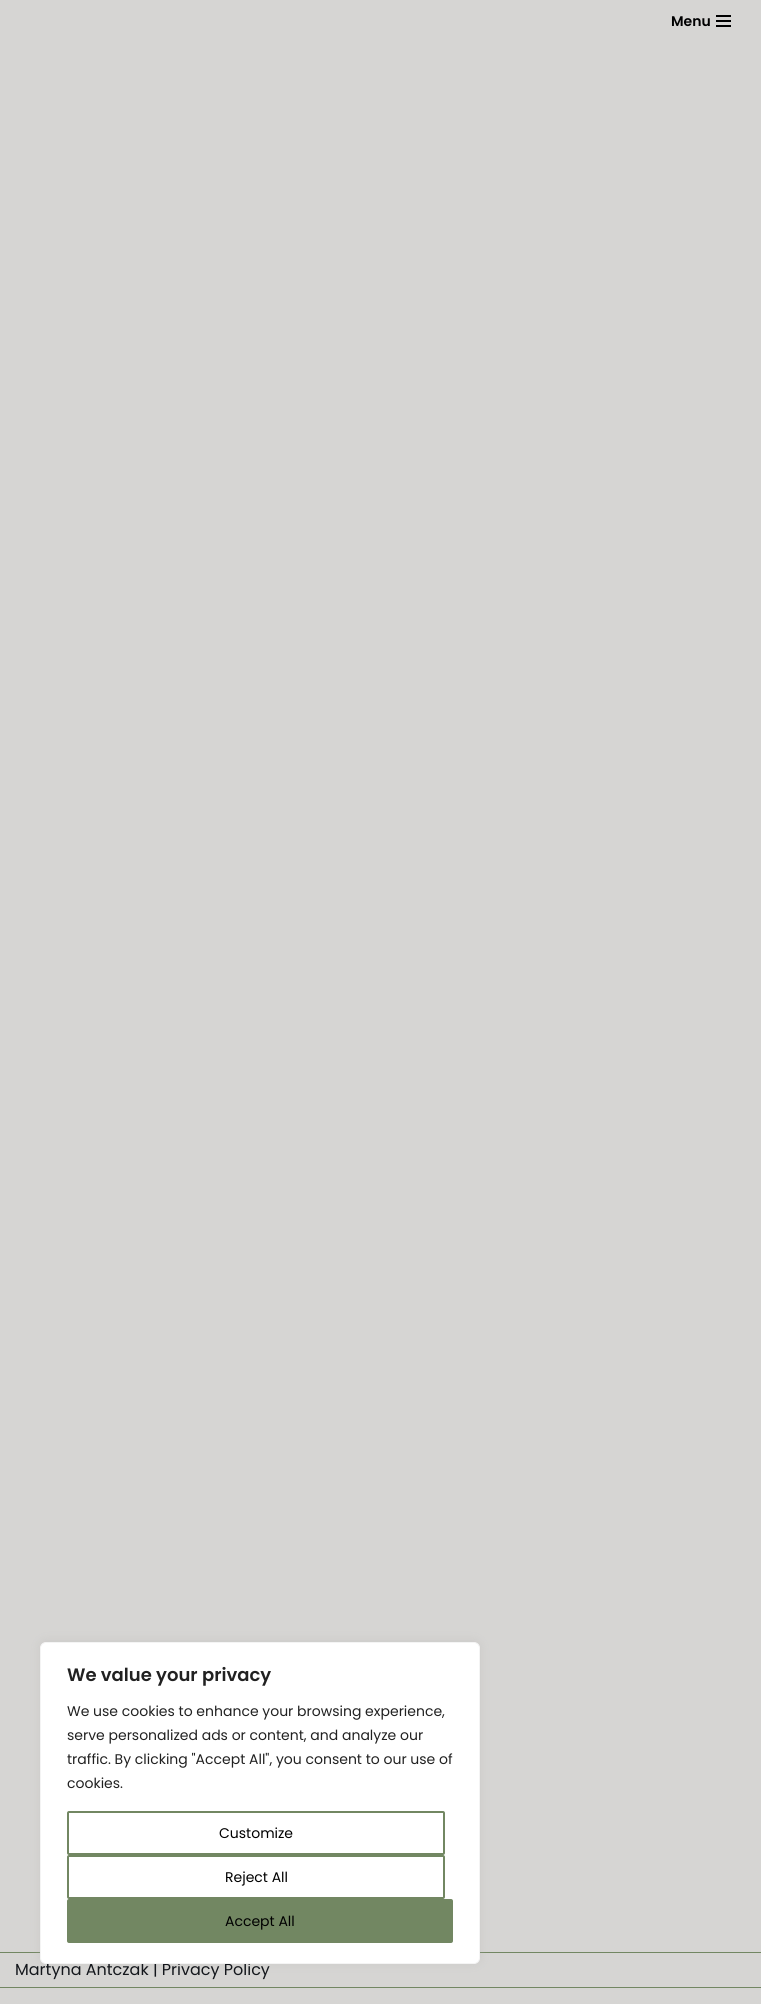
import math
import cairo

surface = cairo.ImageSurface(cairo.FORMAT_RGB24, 761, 2004)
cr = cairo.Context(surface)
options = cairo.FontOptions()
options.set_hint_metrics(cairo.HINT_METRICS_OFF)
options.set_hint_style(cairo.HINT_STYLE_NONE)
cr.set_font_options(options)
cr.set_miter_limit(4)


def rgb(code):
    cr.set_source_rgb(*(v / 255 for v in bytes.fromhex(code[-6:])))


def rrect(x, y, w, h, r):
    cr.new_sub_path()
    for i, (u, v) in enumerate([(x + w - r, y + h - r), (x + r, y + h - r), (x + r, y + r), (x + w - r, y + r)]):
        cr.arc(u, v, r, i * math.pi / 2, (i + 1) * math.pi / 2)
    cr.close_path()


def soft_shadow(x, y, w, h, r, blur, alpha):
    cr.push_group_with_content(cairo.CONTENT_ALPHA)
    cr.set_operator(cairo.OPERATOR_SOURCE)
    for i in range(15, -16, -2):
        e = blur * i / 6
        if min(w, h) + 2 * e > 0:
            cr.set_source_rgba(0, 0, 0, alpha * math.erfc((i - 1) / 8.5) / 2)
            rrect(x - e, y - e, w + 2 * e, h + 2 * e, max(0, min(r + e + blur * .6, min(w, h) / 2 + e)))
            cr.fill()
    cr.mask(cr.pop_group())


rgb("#d6d5d3")
cr.paint()
for x, y, w, h, color in [
    (716, 15, 15, 2, "#000000"),
    (716, 20, 15, 2, "#000000"),
    (716, 25, 15, 2, "#000000"),
    (0, 1952, 761, 1, "#728762"),
    (0, 1987, 761, 1, "#728762"),
]:
    rgb(color)
    cr.rectangle(x, y, w, h)
    cr.fill()
rgb("#acabab")
soft_shadow(40, 1641, 440, 322, 6, 5, 0.3)
cr.select_font_face("Poppins SemiBold")
cr.set_font_size(14)
rgb("#000000")
cr.move_to(671, 26)
cr.show_text("Menu")
cr.select_font_face("Poppins")
cr.set_font_size(16)
rgb("#14171c")
cr.move_to(15, 1975)
cr.show_text("Martyna Antczak | Privacy Policy")
rgb("#ffffff")
rrect(40.5, 1642.5, 439, 321, 5.5)
cr.fill_preserve()
rgb("#f4f4f4")
cr.set_line_width(1)
cr.stroke()
cr.select_font_face("Poppins SemiBold")
cr.set_font_size(18)
rgb("#212121")
cr.move_to(67, 1681)
cr.show_text("We value your privacy")
cr.select_font_face("Poppins")
cr.set_font_size(14)
for x, y, s in [
    (67, 1716, "We use cookies to enhance your browsing experience,"),
    (67, 1740, "serve personalized ads or content, and analyze our"),
    (67, 1764, "traffic. By clicking \"Accept All\", you consent to our use of"),
    (67, 1788, "cookies."),
]:
    cr.move_to(x, y)
    cr.show_text(s)
rrect(68, 1812, 376, 42, 1)
rgb("#728762")
cr.set_line_width(2)
cr.stroke()
rgb("#000000")
cr.move_to(219, 1838)
cr.show_text("Customize")
rrect(68, 1856, 376, 42, 1)
rgb("#728762")
cr.stroke()
rgb("#000000")
cr.move_to(225, 1882)
cr.show_text("Reject All")
rgb("#728762")
rrect(68, 1900, 384, 42, 1)
cr.fill_preserve()
cr.stroke()
rgb("#000000")
cr.move_to(225, 1926)
cr.show_text("Accept All")
surface.write_to_png("page.png")
